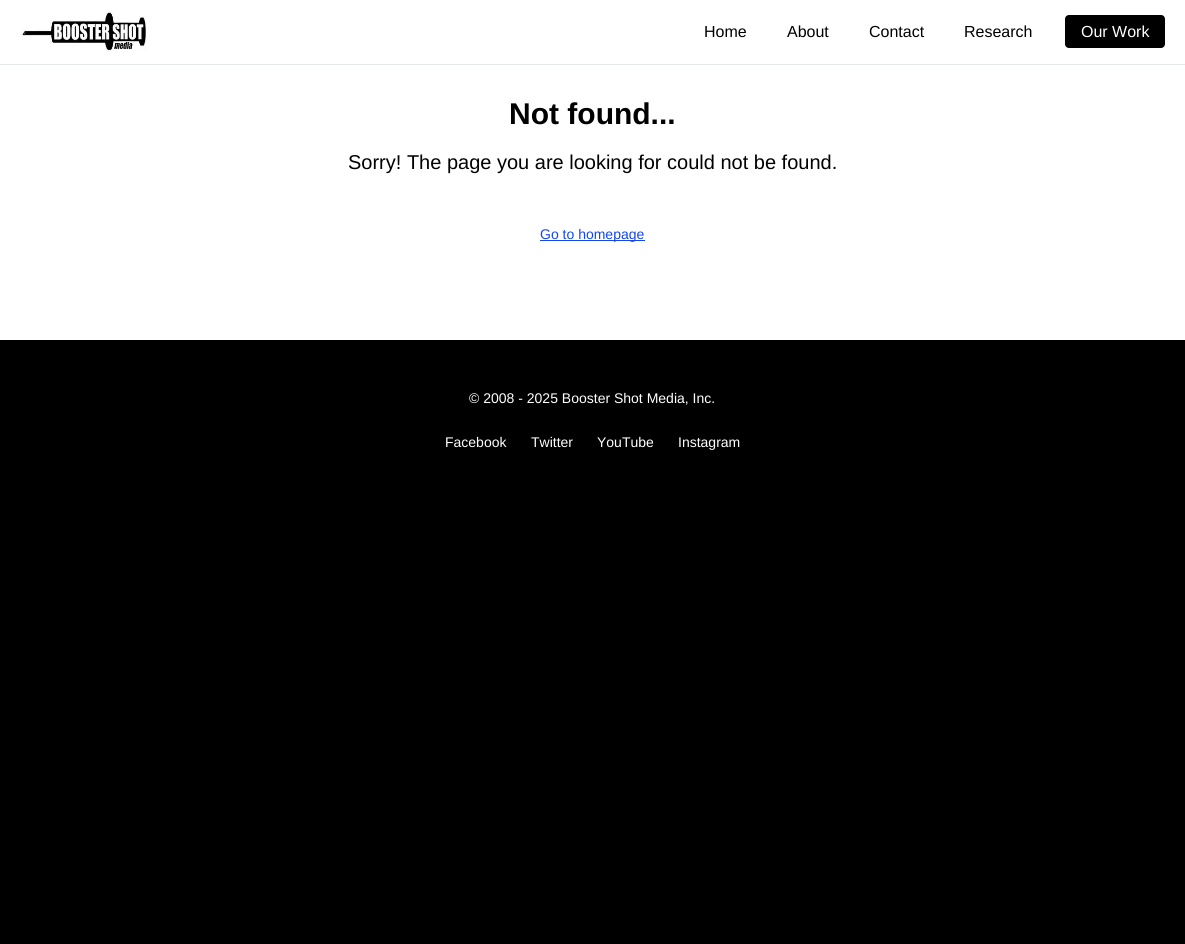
import math
import cairo

surface = cairo.ImageSurface(cairo.FORMAT_RGB24, 1185, 944)
cr = cairo.Context(surface)
options = cairo.FontOptions()
options.set_hint_metrics(cairo.HINT_METRICS_OFF)
options.set_hint_style(cairo.HINT_STYLE_NONE)
cr.set_font_options(options)
cr.set_miter_limit(4)


def rgb(code):
    cr.set_source_rgb(*(v / 255 for v in bytes.fromhex(code[-6:])))


def rrect(x, y, w, h, r):
    cr.new_sub_path()
    for i, (u, v) in enumerate([(x + w - r, y + h - r), (x + r, y + h - r), (x + r, y + r), (x + w - r, y + r)]):
        cr.arc(u, v, r, i * math.pi / 2, (i + 1) * math.pi / 2)
    cr.close_path()


def image(path, x, y, w, h):
    cr.save()
    cr.set_source_surface(cairo.ImageSurface.create_from_png(path), x, y)
    cr.rectangle(x, y, w, h)
    cr.fill()
    cr.restore()


rgb("#ffffff")
cr.paint()
rgb("#e5e7eb")
cr.rectangle(0, 64, 1185, 1)
cr.fill()
image("img/1.png", 21, 12, 126, 40)
rgb("#000000")
rrect(1065, 15, 100, 33, 4)
cr.fill()
rgb("#1447e6")
cr.rectangle(540, 240, 105, 1)
cr.fill()
rgb("#000000")
cr.rectangle(0, 340, 1185, 604)
cr.fill()
cr.select_font_face("Liberation Sans")
cr.set_font_size(16)
for x, y, s in [
    (704, 37, "Home"),
    (787, 37, "About"),
    (869, 37, "Contact"),
    (964, 37, "Research"),
]:
    cr.move_to(x, y)
    cr.show_text(s)
rgb("#ffffff")
cr.move_to(1081, 37)
cr.show_text("Our Work")
cr.select_font_face("Liberation Sans", cairo.FONT_SLANT_NORMAL, cairo.FONT_WEIGHT_BOLD)
cr.set_font_size(30)
rgb("#000000")
cr.move_to(509, 124)
cr.show_text("Not found...")
cr.select_font_face("Liberation Sans")
cr.set_font_size(20)
cr.move_to(348, 169)
cr.show_text("Sorry! The page you are looking for could not be found.")
cr.set_font_size(14)
rgb("#1447e6")
cr.move_to(540, 239)
cr.show_text("Go to homepage")
rgb("#ffffff")
for x, y, s in [
    (469, 403, "© 2008 - 2025 Booster Shot Media, Inc."),
    (445, 447, "Facebook"),
    (531, 447, "Twitter"),
    (597, 447, "YouTube"),
    (678, 447, "Instagram"),
]:
    cr.move_to(x, y)
    cr.show_text(s)
surface.write_to_png("page.png")
